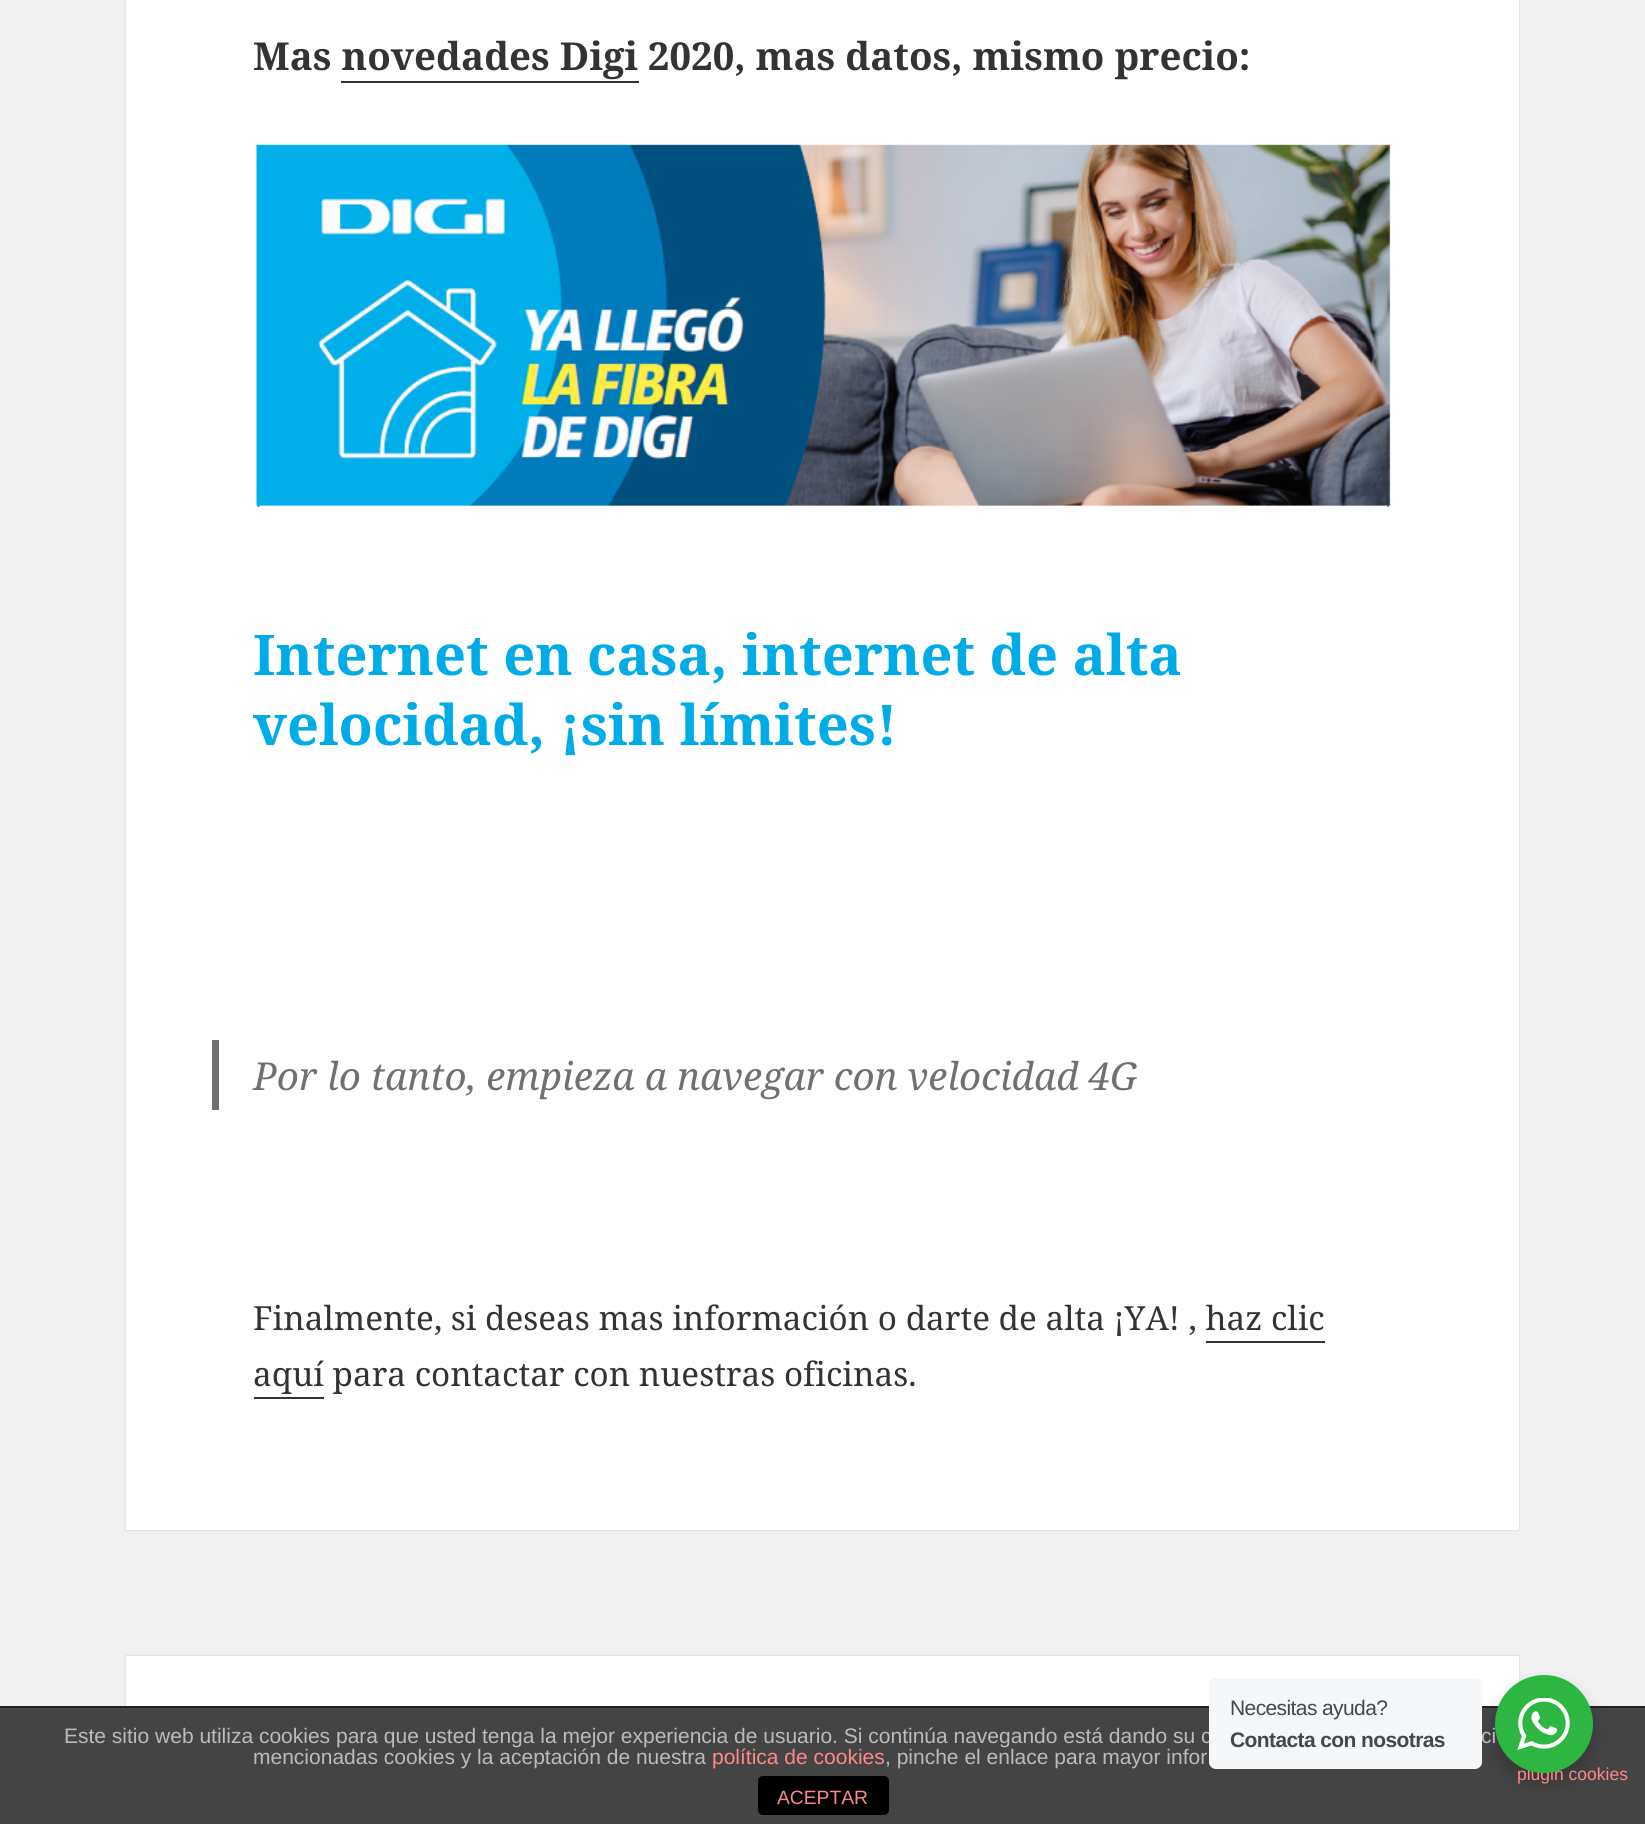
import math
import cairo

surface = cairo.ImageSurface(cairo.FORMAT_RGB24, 1645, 1824)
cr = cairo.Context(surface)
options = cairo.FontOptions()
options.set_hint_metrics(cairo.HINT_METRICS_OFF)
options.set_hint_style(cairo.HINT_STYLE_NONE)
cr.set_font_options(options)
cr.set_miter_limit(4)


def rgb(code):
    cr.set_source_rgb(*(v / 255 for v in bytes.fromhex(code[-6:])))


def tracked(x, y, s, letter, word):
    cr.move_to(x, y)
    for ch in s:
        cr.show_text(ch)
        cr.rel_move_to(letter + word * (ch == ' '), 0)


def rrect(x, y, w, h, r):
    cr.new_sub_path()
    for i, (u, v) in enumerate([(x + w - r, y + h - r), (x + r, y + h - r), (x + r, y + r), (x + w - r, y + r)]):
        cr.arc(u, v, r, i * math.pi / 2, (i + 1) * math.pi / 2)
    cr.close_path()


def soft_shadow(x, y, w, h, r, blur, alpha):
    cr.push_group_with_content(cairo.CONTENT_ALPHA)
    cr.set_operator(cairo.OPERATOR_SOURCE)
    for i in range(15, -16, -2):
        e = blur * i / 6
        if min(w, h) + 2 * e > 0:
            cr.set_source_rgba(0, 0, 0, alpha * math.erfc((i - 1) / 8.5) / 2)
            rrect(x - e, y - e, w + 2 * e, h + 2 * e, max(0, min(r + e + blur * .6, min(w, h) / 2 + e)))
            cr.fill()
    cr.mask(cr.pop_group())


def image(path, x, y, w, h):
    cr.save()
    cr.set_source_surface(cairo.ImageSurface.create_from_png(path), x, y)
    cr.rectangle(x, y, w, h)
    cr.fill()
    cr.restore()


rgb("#f1f1f1")
cr.paint()
rgb("#000000")
soft_shadow(126, -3, 1393, 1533, 0, 1, 0.15)
rgb("#ffffff")
cr.rectangle(126, 0, 1393, 1530)
cr.fill()
rgb("#333333")
cr.rectangle(341, 81, 298, 2)
cr.fill()
image("img/1.png", 256, 144, 1135, 363)
for x, y, w, h, color in [
    (212, 1040, 7, 70, "#707070"),
    (1206, 1341, 119, 2, "#333333"),
    (254, 1397, 70, 2, "#333333"),
]:
    rgb(color)
    cr.rectangle(x, y, w, h)
    cr.fill()
rgb("#000000")
soft_shadow(126, 1656, 1393, 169, 0, 1, 0.15)
for x, y, w, h, color in [
    (126, 1656, 1393, 50, "#ffffff"),
    (0, 1708, 1645, 116, "#444444"),
    (0, 1706, 1645, 2, "#222222"),
]:
    rgb(color)
    cr.rectangle(x, y, w, h)
    cr.fill()
rgb("#000000")
soft_shadow(1491, 1682, 105, 105, 52.5, 7, 0.14)
rgb("#000000")
rrect(758, 1776, 131, 39, 5)
cr.fill()
cr.select_font_face("Noto Serif", cairo.FONT_SLANT_NORMAL, cairo.FONT_WEIGHT_BOLD)
cr.set_font_size(38.5)
rgb("#333333")
cr.move_to(253, 70)
cr.show_text("Mas novedades Digi 2020, mas datos, mismo precio:")
cr.set_font_size(56)
rgb("#00ace8")
cr.move_to(253, 675)
cr.show_text("Internet en casa, internet de alta")
cr.move_to(253, 745)
cr.show_text("velocidad, ¡sin límites!")
cr.select_font_face("Noto Serif", cairo.FONT_SLANT_ITALIC)
cr.set_font_size(38.5)
rgb("#707070")
cr.move_to(253, 1090)
cr.show_text("Por lo tanto, empieza a navegar con velocidad 4G")
cr.select_font_face("Noto Serif")
cr.set_font_size(33.25)
rgb("#333333")
cr.move_to(253, 1330)
cr.show_text("Finalmente, si deseas mas información o darte de alta ¡YA! , haz clic")
cr.move_to(253, 1386)
cr.show_text("aquí para contactar con nuestras oficinas.")
cr.select_font_face("Liberation Sans")
cr.set_font_size(21)
rgb("#bbbbbb")
cr.move_to(64, 1743)
cr.show_text("Este sitio web utiliza cookies para que usted tenga la mejor experiencia de usuario. Si continúa navegando está dando su c")
cr.move_to(1481, 1743)
cr.show_text("ci")
rgb("#f5f7f9")
rrect(1209, 1678, 273, 91, 7)
cr.fill()
cr.select_font_face("Liberation Sans", cairo.FONT_SLANT_NORMAL, cairo.FONT_WEIGHT_BOLD)
rgb("#43474e")
tracked(1230, 1747, "Contacta con nosotras", -0.6, 0)
cr.select_font_face("Liberation Sans")
tracked(1230, 1715, "Necesitas ayuda?", -0.6, 0)
rgb("#bbbbbb")
cr.move_to(253, 1764)
cr.show_text("mencionadas cookies y la aceptación de nuestra")
rgb("#ff8888")
cr.move_to(712, 1764)
cr.show_text("política de cookies")
rgb("#bbbbbb")
cr.move_to(885, 1764)
cr.show_text(", pinche el enlace para mayor infor")
cr.set_font_size(17.5)
rgb("#ff8888")
cr.move_to(1517, 1780)
cr.show_text("plugin cookies")
rgb("#2db742")
cr.new_path()
cr.arc(1544, 1724, 49, 0, 2 * math.pi)
cr.fill()
image("img/2.png", 1517, 1698, 53, 52)
cr.set_font_size(19.25)
rgb("#ff8888")
cr.move_to(777, 1804)
cr.show_text("ACEPTAR")
surface.write_to_png("page.png")
